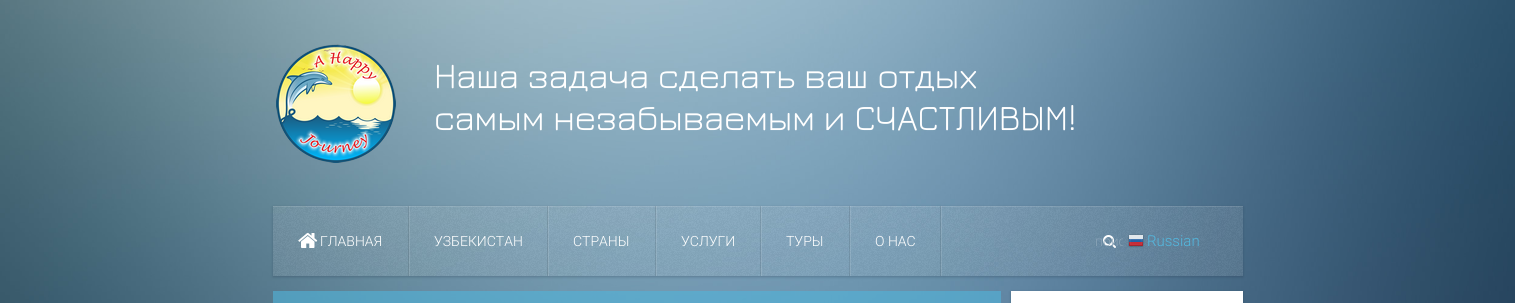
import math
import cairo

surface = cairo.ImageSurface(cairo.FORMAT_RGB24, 1515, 303)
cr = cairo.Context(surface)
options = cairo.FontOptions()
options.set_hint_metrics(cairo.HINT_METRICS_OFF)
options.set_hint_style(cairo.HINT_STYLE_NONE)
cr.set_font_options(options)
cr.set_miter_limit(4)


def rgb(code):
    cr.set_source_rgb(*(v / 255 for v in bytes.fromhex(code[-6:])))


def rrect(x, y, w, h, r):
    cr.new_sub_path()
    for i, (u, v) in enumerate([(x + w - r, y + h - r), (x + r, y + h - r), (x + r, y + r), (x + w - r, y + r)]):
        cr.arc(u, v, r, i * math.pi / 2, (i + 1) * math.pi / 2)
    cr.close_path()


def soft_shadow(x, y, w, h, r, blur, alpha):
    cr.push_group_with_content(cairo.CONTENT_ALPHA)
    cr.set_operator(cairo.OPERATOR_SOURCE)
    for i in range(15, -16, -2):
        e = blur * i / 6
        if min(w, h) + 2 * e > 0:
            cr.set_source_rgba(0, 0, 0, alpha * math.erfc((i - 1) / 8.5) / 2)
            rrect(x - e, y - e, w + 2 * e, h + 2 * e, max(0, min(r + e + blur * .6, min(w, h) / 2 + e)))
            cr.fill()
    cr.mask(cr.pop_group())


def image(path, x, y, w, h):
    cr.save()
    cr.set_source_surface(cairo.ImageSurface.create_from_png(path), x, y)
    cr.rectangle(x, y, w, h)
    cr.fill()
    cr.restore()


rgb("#ffffff")
cr.paint()
image("img/1.png", 0, 0, 1515, 303)
image("img/2.png", 276, 44, 120, 119)
cr.save()
cr.set_fill_rule(cairo.FILL_RULE_EVEN_ODD)
cr.new_path()
cr.move_to(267, 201)
cr.line_to(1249, 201)
cr.line_to(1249, 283)
cr.line_to(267, 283)
cr.close_path()
cr.move_to(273, 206)
cr.line_to(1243, 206)
cr.line_to(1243, 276)
cr.line_to(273, 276)
cr.close_path()
cr.clip()
rgb("#1e3246")
soft_shadow(273, 207, 970, 70, 0, 1.5, 0.3)
cr.restore()
cr.set_source_rgba(1, 1, 1, 0.1)
cr.rectangle(273, 206, 970, 70)
cr.fill()
image("img/3.png", 273, 206, 970, 70)
cr.set_source_rgba(1, 1, 1, 0.12)
cr.rectangle(273, 206, 970, 1)
cr.fill()
cr.rectangle(409, 206, 1, 70)
cr.fill()
cr.set_source_rgba(0, 0, 0, 0.1)
cr.rectangle(408, 206, 1, 70)
cr.fill()
image("img/4.png", 298, 233, 20, 15)
cr.set_source_rgba(1, 1, 1, 0.12)
cr.rectangle(548, 206, 1, 70)
cr.fill()
cr.set_source_rgba(0, 0, 0, 0.1)
cr.rectangle(547, 206, 1, 70)
cr.fill()
cr.set_source_rgba(1, 1, 1, 0.12)
cr.rectangle(656, 206, 1, 70)
cr.fill()
cr.set_source_rgba(0, 0, 0, 0.1)
cr.rectangle(655, 206, 1, 70)
cr.fill()
cr.set_source_rgba(1, 1, 1, 0.12)
cr.rectangle(761, 206, 1, 70)
cr.fill()
cr.set_source_rgba(0, 0, 0, 0.1)
cr.rectangle(760, 206, 1, 70)
cr.fill()
cr.set_source_rgba(1, 1, 1, 0.12)
cr.rectangle(850, 206, 1, 70)
cr.fill()
cr.set_source_rgba(0, 0, 0, 0.1)
cr.rectangle(849, 206, 1, 70)
cr.fill()
cr.set_source_rgba(1, 1, 1, 0.12)
cr.rectangle(941, 206, 1, 70)
cr.fill()
cr.set_source_rgba(0, 0, 0, 0.1)
cr.rectangle(940, 206, 1, 70)
cr.fill()
image("img/5.png", 1103, 235, 13, 13)
image("img/6.png", 1128, 234, 16, 14)
cr.set_source_rgba(0.318, 0.706, 0.859, 0.6)
cr.rectangle(273, 291, 728, 12)
cr.fill()
rgb("#1e3246")
soft_shadow(1011, 292, 232, 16, 0, 1.5, 0.3)
rgb("#ffffff")
cr.rectangle(1011, 291, 232, 12)
cr.fill()
cr.select_font_face("Jura Light")
cr.set_font_size(36)
cr.move_to(434, 88)
cr.show_text("Наша задача сделать ваш отдых")
cr.move_to(434, 130)
cr.show_text("самым незабываемым и СЧАСТЛИВЫМ!")
cr.select_font_face("Roboto Light")
cr.set_font_size(14)
for x, y, s in [
    (320, 246, "ГЛАВНАЯ"),
    (434, 246, "УЗБЕКИСТАН"),
    (573, 246, "СТРАНЫ"),
    (681, 246, "УСЛУГИ"),
    (786, 246, "ТУРЫ"),
    (875, 246, "О НАС"),
]:
    cr.move_to(x, y)
    cr.show_text(s)
cr.save()
cr.rectangle(1095, 233, 28, 16)
cr.clip()
rgb("#8ba4b7")
cr.move_to(1095, 246)
cr.show_text("поис")
cr.restore()
cr.set_font_size(15)
rgb("#52b8df")
cr.move_to(1147, 246)
cr.show_text("Russian")
surface.write_to_png("page.png")
